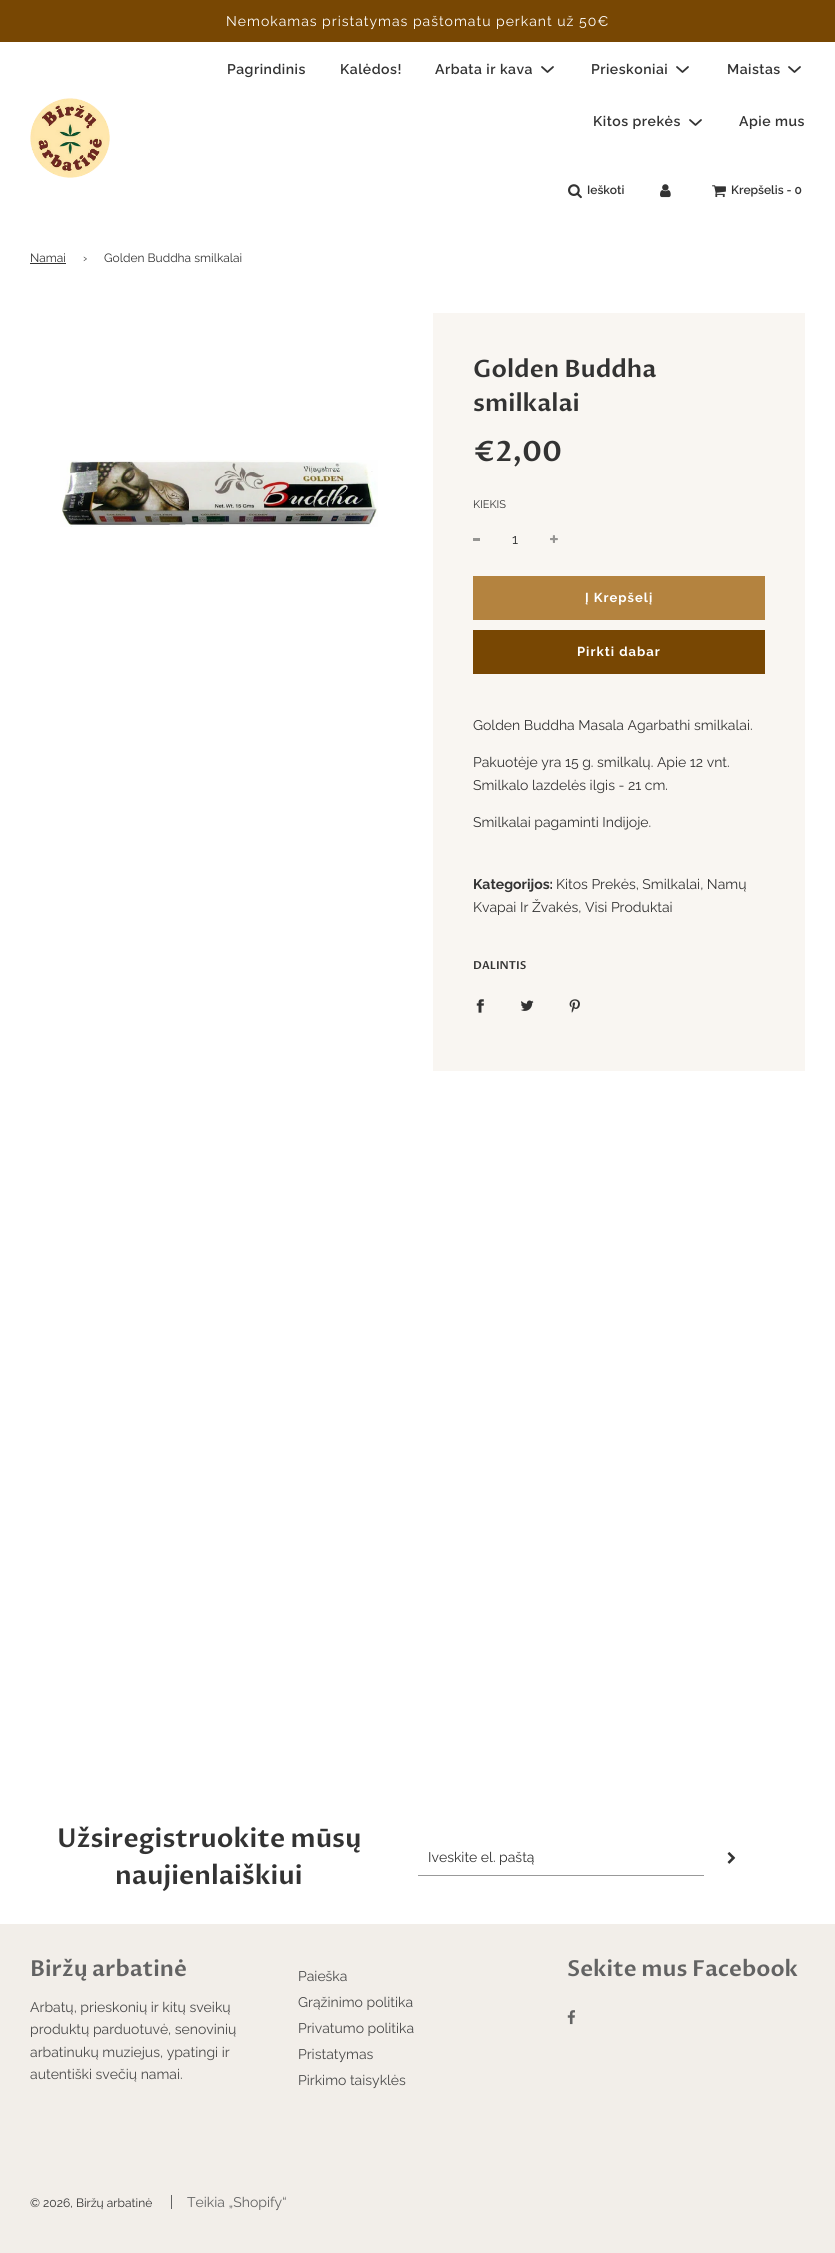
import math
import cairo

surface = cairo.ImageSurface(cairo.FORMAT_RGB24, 835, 2253)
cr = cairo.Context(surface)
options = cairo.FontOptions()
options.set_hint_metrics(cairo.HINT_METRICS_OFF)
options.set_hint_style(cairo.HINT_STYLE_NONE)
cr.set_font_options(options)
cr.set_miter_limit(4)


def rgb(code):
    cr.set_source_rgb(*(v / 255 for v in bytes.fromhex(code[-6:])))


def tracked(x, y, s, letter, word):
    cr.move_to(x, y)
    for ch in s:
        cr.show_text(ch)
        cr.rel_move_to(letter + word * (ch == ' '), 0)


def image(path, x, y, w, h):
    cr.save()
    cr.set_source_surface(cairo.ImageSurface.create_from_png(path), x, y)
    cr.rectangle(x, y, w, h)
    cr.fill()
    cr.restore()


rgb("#ffffff")
cr.paint()
rgb("#784703")
cr.rectangle(0, 0, 835, 42)
cr.fill()
image("img/1.png", 30, 98, 80, 80)
cr.new_path()
cr.move_to(542, 67)
cr.line_to(547.5, 72)
cr.line_to(553, 67)
rgb("#333333")
cr.set_line_width(1.8)
cr.set_line_cap(cairo.LINE_CAP_ROUND)
cr.set_line_join(cairo.LINE_JOIN_ROUND)
cr.stroke()
cr.new_path()
cr.move_to(677, 67)
cr.line_to(682.5, 72)
cr.line_to(688, 67)
cr.stroke()
cr.new_path()
cr.move_to(789, 67)
cr.line_to(794.5, 72)
cr.line_to(800, 67)
cr.stroke()
cr.new_path()
cr.move_to(690, 120)
cr.line_to(695.5, 125)
cr.line_to(701, 120)
cr.stroke()
image("img/2.png", 568, 184, 14, 15)
image("img/3.png", 660, 184, 11, 14)
image("img/4.png", 712, 185, 14, 13)
cr.rectangle(30, 263, 36, 1)
cr.fill()
image("img/5.png", 60, 460, 318, 67)
rgb("#f9f6f2")
cr.rectangle(433, 313, 372, 758)
cr.fill()
rgb("#969593")
cr.rectangle(473, 538, 7, 3)
cr.fill()
image("img/6.png", 550, 535, 8, 8)
rgb("#b4833f")
cr.rectangle(473, 576, 292, 44)
cr.fill()
rgb("#784703")
cr.rectangle(473, 630, 292, 44)
cr.fill()
image("img/7.png", 476, 999, 8, 14)
image("img/8.png", 520, 1000, 14, 11)
image("img/9.png", 569, 999, 11, 14)
rgb("#999999")
cr.rectangle(418, 1875, 286, 1)
cr.fill()
image("img/10.png", 727, 1852, 9, 12)
rgb("#f2eee9")
cr.rectangle(0, 1924, 835, 329)
cr.fill()
image("img/11.png", 567, 2010, 8, 15)
rgb("#636363")
cr.rectangle(171, 2195, 1, 14)
cr.fill()
cr.select_font_face("Raleway")
cr.set_font_size(14)
rgb("#ffffff")
tracked(226, 26, "Nemokamas pristatymas paštomatu perkant už 50€", 1, 0)
cr.select_font_face("Raleway SemiBold")
rgb("#333333")
for x, y, s in [
    (227, 74, "Pagrindinis"),
    (340, 74, "Kalėdos!"),
    (435, 74, "Arbata ir kava"),
    (591, 74, "Prieskoniai"),
    (727, 74, "Maistas"),
    (593, 126, "Kitos prekės"),
    (739, 126, "Apie mus"),
]:
    tracked(x, y, s, 0.5, 0)
cr.set_font_size(12)
cr.move_to(587, 194)
cr.show_text("Ieškoti")
cr.move_to(731, 194)
cr.show_text("Krepšelis - 0")
cr.select_font_face("Raleway")
for x, y, s in [
    (30, 262, "Namai"),
    (83, 262, "›"),
    (104, 262, "Golden Buddha smilkalai"),
]:
    cr.move_to(x, y)
    cr.show_text(s)
cr.select_font_face("Proza Libre SemiBold")
cr.set_font_size(24)
cr.move_to(473, 377)
cr.show_text("Golden Buddha")
cr.move_to(473, 411)
cr.show_text("smilkalai")
cr.set_font_size(28)
cr.move_to(473, 461)
cr.show_text("€2,00")
cr.select_font_face("Raleway")
cr.set_font_size(11)
cr.move_to(473, 508)
cr.show_text("KIEKIS")
cr.set_font_size(14)
cr.move_to(512, 544)
cr.show_text("1")
cr.select_font_face("Raleway", cairo.FONT_SLANT_NORMAL, cairo.FONT_WEIGHT_BOLD)
cr.set_font_size(13)
rgb("#ffffff")
tracked(585, 602, "Į Krepšelį", 1, 0)
tracked(577, 656, "Pirkti dabar", 1, 0)
cr.select_font_face("Raleway")
cr.set_font_size(14)
rgb("#333333")
for x, y, s in [
    (473, 730, "Golden Buddha Masala Agarbathi smilkalai."),
    (473, 767, "Pakuotėje yra 15 g. smilkalų. Apie 12 vnt."),
    (473, 790, "Smilkalo lazdelės ilgis - 21 cm."),
    (473, 827, "Smilkalai pagaminti Indijoje."),
]:
    cr.move_to(x, y)
    cr.show_text(s)
cr.select_font_face("Raleway", cairo.FONT_SLANT_NORMAL, cairo.FONT_WEIGHT_BOLD)
cr.move_to(473, 889)
cr.show_text("Kategorijos:")
cr.select_font_face("Raleway")
cr.move_to(556, 889)
cr.show_text("Kitos Prekės, Smilkalai, Namų")
cr.move_to(473, 912)
cr.show_text("Kvapai Ir Žvakės, Visi Produktai")
cr.select_font_face("Proza Libre SemiBold")
cr.set_font_size(11)
cr.move_to(473, 969)
cr.show_text("DALINTIS")
cr.set_font_size(26)
cr.move_to(57, 1847)
cr.show_text("Užsiregistruokite mūsų")
cr.move_to(115, 1884)
cr.show_text("naujienlaiškiui")
cr.select_font_face("Raleway")
cr.set_font_size(14)
cr.move_to(428, 1862)
cr.show_text("Iveskite el. paštą")
cr.select_font_face("Proza Libre SemiBold")
cr.set_font_size(22)
rgb("#636363")
cr.move_to(30, 1976)
cr.show_text("Biržų arbatinė")
cr.select_font_face("Raleway")
cr.set_font_size(14)
rgb("#4a4a4a")
for x, y, s in [
    (30, 2012, "Arbatų, prieskonių ir kitų sveikų"),
    (30, 2034, "produktų parduotuvė, senovinių"),
    (30, 2057, "arbatinukų muziejus, ypatingi ir"),
    (30, 2079, "autentiški svečių namai."),
]:
    cr.move_to(x, y)
    cr.show_text(s)
cr.select_font_face("Proza Libre SemiBold")
cr.set_font_size(22)
rgb("#636363")
cr.move_to(567, 1976)
cr.show_text("Sekite mus Facebook")
cr.select_font_face("Raleway")
cr.set_font_size(14)
rgb("#4a4a4a")
for x, y, s in [
    (298, 1981, "Paieška"),
    (298, 2007, "Grąžinimo politika"),
    (298, 2033, "Privatumo politika"),
    (298, 2059, "Pristatymas"),
    (298, 2085, "Pirkimo taisyklės"),
]:
    cr.move_to(x, y)
    cr.show_text(s)
cr.set_font_size(12)
rgb("#333333")
cr.move_to(30, 2207)
cr.show_text("© 2026, Biržų arbatinė")
cr.set_font_size(14)
rgb("#636363")
cr.move_to(187, 2207)
cr.show_text("Teikia „Shopify“")
surface.write_to_png("page.png")
